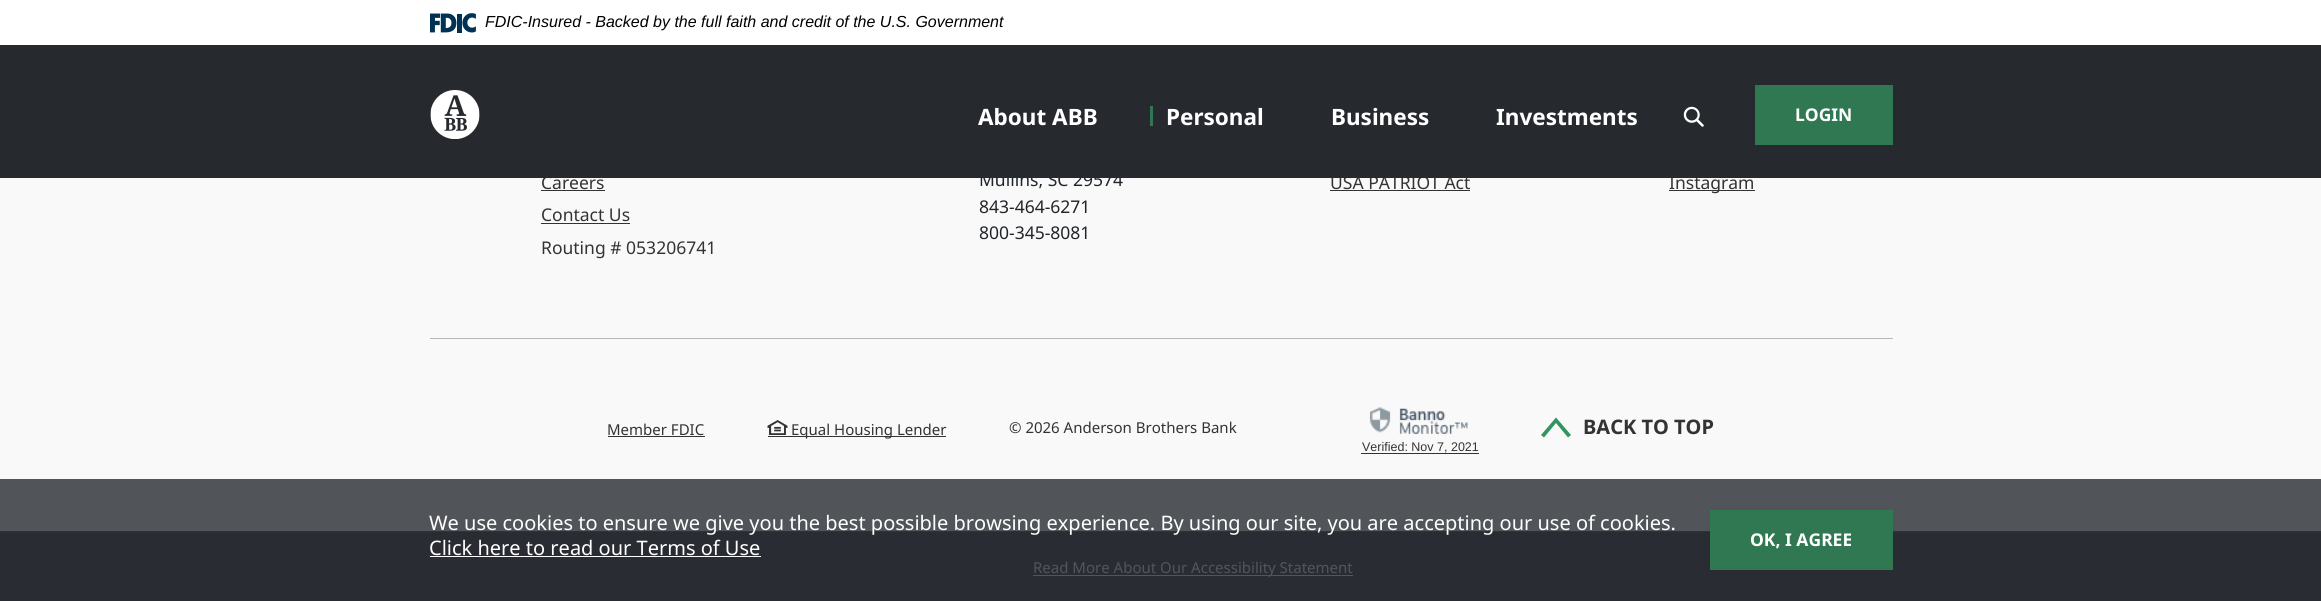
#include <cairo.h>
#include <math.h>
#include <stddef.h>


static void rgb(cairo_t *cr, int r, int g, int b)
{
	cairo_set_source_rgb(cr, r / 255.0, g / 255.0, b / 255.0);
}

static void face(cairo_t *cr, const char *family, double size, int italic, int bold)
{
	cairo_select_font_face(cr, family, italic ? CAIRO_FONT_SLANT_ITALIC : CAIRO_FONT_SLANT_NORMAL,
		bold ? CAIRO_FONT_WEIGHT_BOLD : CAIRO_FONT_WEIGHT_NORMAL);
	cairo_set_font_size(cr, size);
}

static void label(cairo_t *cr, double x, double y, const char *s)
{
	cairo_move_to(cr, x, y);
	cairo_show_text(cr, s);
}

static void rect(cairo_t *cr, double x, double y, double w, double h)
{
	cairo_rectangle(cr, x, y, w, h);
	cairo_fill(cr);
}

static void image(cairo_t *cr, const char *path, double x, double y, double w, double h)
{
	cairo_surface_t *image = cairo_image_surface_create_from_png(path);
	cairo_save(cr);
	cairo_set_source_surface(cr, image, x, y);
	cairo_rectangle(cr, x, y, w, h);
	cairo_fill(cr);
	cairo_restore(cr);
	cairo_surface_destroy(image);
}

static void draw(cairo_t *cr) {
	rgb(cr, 41, 45, 51);
	cairo_paint(cr);
	rgb(cr, 249, 249, 249);
	rect(cr, 0, 178, 2321, 301);
	face(cr, "Noto Sans", 17.5, 0, 0);
	rgb(cr, 51, 51, 51);
	label(cr, 541, 189, "Careers");
	rgb(cr, 33, 37, 41);
	label(cr, 979, 186, "Mullins, SC 29574");
	rgb(cr, 51, 51, 51);
	label(cr, 1330, 189, "USA PATRIOT Act");
	rect(cr, 1669, 190, 86, 1);
	label(cr, 1669, 189, "Instagram");
	rgb(cr, 38, 41, 46);
	rect(cr, 0, 45, 2321, 133);
	rgb(cr, 255, 255, 255);
	rect(cr, 0, 0, 2321, 45);
	image(cr, "image0.png", 430, 13, 46, 20);
	face(cr, "Liberation Sans", 16, 1, 0);
	rgb(cr, 0, 0, 0);
	label(cr, 485, 27, "FDIC-Insured - Backed by the full faith and credit of the U.S. Government");
	image(cr, "image1.png", 430, 90, 50, 49);
	face(cr, "Noto Sans", 22.5, 0, 1);
	rgb(cr, 255, 255, 255);
	label(cr, 978, 125, "About ABB");
	rgb(cr, 47, 120, 81);
	rect(cr, 1150, 106, 3, 20);
	rgb(cr, 255, 255, 255);
	label(cr, 1166, 125, "Personal");
	label(cr, 1331, 125, "Business");
	label(cr, 1496, 125, "Investments");
	image(cr, "image2.png", 1683, 106, 21, 21);
	rgb(cr, 47, 120, 81);
	rect(cr, 1755, 85, 138, 60);
	face(cr, "Noto Sans", 17.5, 0, 1);
	rgb(cr, 255, 255, 255);
	label(cr, 1795, 121, "LOGIN");
	rgb(cr, 81, 84, 89);
	rect(cr, 0, 479, 2321, 52);
	rgb(cr, 51, 51, 51);
	rect(cr, 541, 190, 64, 1);
	face(cr, "Noto Sans", 17.5, 0, 0);
	label(cr, 541, 221, "Contact Us");
	rect(cr, 541, 223, 89, 1);
	label(cr, 541, 254, "Routing # 053206741");
	rgb(cr, 33, 37, 41);
	label(cr, 979, 213, "843-464-6271");
	label(cr, 979, 239, "800-345-8081");
	rgb(cr, 51, 51, 51);
	rect(cr, 1330, 190, 140, 1);
	rgb(cr, 182, 182, 182);
	rect(cr, 430, 338, 1463, 1);
	face(cr, "Noto Sans", 15, 0, 0);
	rgb(cr, 51, 51, 51);
	label(cr, 607, 435, "Member FDIC");
	rect(cr, 608, 436, 97, 1);
	image(cr, "image3.png", 767, 420, 21, 15);
	rect(cr, 768, 436, 178, 1);
	label(cr, 791, 435, "Equal Housing Lender");
	label(cr, 1009, 433, "© 2026 Anderson Brothers Bank");
	rgb(cr, 50, 148, 96);
	cairo_new_path(cr);
	cairo_move_to(cr, 1568, 437.5);
	cairo_line_to(cr, 1556, 423);
	cairo_line_to(cr, 1544, 437.5);
	cairo_line_to(cr, 1541, 435);
	cairo_line_to(cr, 1556, 417.5);
	cairo_line_to(cr, 1571, 435);
	cairo_close_path(cr);
	cairo_fill(cr);
	face(cr, "Noto Sans", 20, 0, 1);
	rgb(cr, 51, 51, 51);
	label(cr, 1583, 434, "BACK TO TOP");
	image(cr, "image4.png", 1369, 407, 99, 28);
	face(cr, "Liberation Sans", 12.5, 0, 0);
	label(cr, 1362, 451, "Verified: Nov 7, 2021");
	rect(cr, 1361, 453, 118, 1);
	rgb(cr, 46, 50, 57);
	rect(cr, 0, 531, 2321, 1);
	face(cr, "Noto Sans", 20, 0, 0);
	rgb(cr, 255, 255, 255);
	label(cr, 429, 530, "We use cookies to ensure we give you the best possible browsing experience. By using our site, you are accepting our use of cookies.");
	label(cr, 429, 555, "Click here to read our Terms of Use");
	rect(cr, 430, 556, 331, 1);
	rgb(cr, 47, 120, 81);
	rect(cr, 1710, 510, 183, 60);
	face(cr, "Noto Sans", 17.5, 0, 1);
	rgb(cr, 255, 255, 255);
	label(cr, 1750, 546, "OK, I AGREE");
	rgb(cr, 82, 85, 90);
	rect(cr, 1033, 575, 320, 1);
	face(cr, "Noto Sans", 15, 0, 0);
	label(cr, 1033, 573, "Read More About Our Accessibility Statement");
}

int main(void) {
	cairo_surface_t *surface = cairo_image_surface_create(CAIRO_FORMAT_RGB24, 2321, 601);
	cairo_t *cr = cairo_create(surface);
	cairo_font_options_t *options = cairo_font_options_create();
	cairo_font_options_set_hint_metrics(options, CAIRO_HINT_METRICS_OFF);
	cairo_font_options_set_hint_style(options, CAIRO_HINT_STYLE_NONE);
	cairo_set_font_options(cr, options);
	cairo_set_miter_limit(cr, 4);
	draw(cr);
	cairo_surface_write_to_png(surface, "render.png");
	cairo_font_options_destroy(options);
	cairo_destroy(cr);
	cairo_surface_destroy(surface);
	return 0;
}
